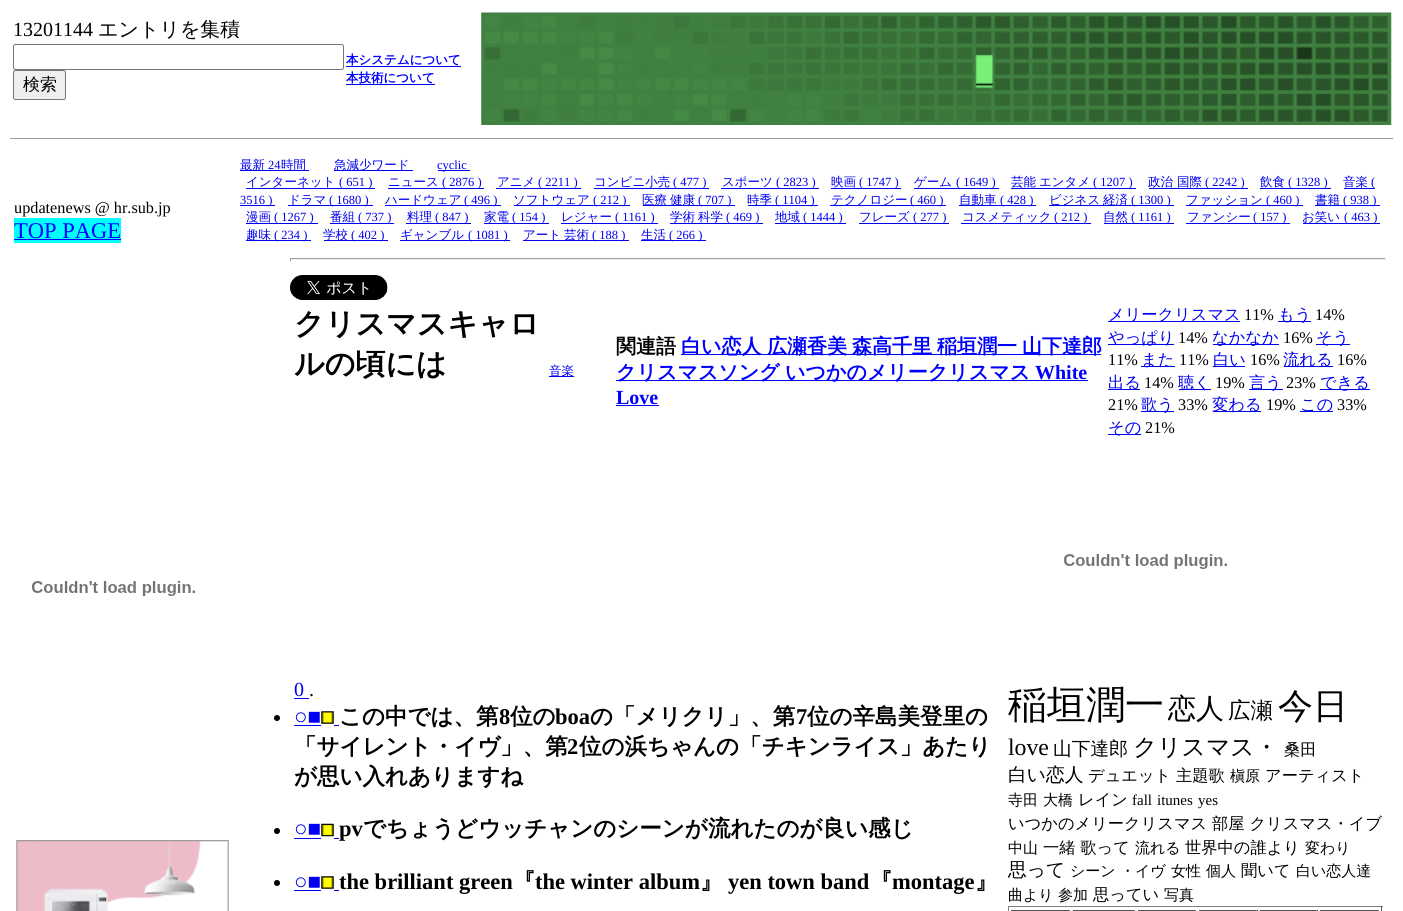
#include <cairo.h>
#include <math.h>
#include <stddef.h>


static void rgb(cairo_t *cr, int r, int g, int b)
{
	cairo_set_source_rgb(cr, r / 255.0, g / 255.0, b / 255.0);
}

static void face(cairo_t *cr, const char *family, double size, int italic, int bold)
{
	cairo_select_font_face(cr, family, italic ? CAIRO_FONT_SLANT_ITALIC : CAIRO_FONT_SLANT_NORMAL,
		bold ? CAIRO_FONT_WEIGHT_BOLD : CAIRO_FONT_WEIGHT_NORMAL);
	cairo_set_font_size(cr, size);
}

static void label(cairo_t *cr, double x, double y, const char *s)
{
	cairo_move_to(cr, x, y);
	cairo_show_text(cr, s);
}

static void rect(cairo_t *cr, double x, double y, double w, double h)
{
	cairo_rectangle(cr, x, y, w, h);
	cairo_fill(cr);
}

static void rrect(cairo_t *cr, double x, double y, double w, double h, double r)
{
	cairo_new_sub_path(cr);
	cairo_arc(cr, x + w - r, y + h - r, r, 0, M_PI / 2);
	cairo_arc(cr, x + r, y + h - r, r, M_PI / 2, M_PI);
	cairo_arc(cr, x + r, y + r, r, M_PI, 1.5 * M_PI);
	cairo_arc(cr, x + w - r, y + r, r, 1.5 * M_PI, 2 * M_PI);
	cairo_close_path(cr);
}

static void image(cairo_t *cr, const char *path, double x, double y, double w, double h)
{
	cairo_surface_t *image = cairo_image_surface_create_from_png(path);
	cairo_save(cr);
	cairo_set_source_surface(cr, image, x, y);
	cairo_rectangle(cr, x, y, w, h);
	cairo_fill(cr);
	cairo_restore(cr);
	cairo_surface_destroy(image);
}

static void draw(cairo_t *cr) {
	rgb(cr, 255, 255, 255);
	cairo_paint(cr);
	face(cr, "Liberation Serif", 20, 0, 0);
	rgb(cr, 0, 0, 0);
	label(cr, 13, 36, "13201144");
	face(cr, "WenQuanYi Zen Hei Medium", 20, 0, 0);
	label(cr, 98, 36, "エントリを集積");
	rrect(cr, 13.5, 44.5, 330, 25, 2);
	rgb(cr, 118, 118, 118);
	cairo_set_line_width(cr, 1);
	cairo_stroke(cr);
	rgb(cr, 239, 239, 239);
	rrect(cr, 13.5, 70.5, 52, 29, 2);
	cairo_fill_preserve(cr);
	rgb(cr, 118, 118, 118);
	cairo_stroke(cr);
	face(cr, "WenQuanYi Zen Hei Medium", 17, 0, 0);
	rgb(cr, 0, 0, 0);
	label(cr, 23, 90, "検索");
	face(cr, "WenQuanYi Zen Hei", 12.5, 0, 1);
	rgb(cr, 0, 0, 255);
	label(cr, 346, 64, "本システムについて");
	rect(cr, 346, 66, 115, 1);
	label(cr, 346, 82, "本技術について");
	rect(cr, 346, 84, 89, 1);
	image(cr, "image0.png", 481, 12, 911, 113);
	rgb(cr, 159, 159, 159);
	rect(cr, 10, 138, 1384, 1);
	rgb(cr, 238, 238, 238);
	rect(cr, 1393, 138, 1, 1);
	face(cr, "Liberation Serif", 16.25, 0, 0);
	rgb(cr, 0, 0, 0);
	label(cr, 14, 213, "updatenews @ hr.sub.jp");
	rgb(cr, 0, 255, 255);
	rect(cr, 14, 218, 107, 25);
	face(cr, "Liberation Serif", 22.5, 0, 0);
	rgb(cr, 0, 0, 255);
	label(cr, 14, 238, "TOP PAGE");
	rect(cr, 14, 239, 107, 1);
	image(cr, "image1.png", 32, 581, 163, 15);
	image(cr, "image2.png", 16, 840, 213, 71);
	rgb(cr, 0, 0, 238);
	rect(cr, 240, 170, 69, 1);
	face(cr, "WenQuanYi Zen Hei Medium", 12.5, 0, 0);
	label(cr, 240, 169, "最新");
	face(cr, "Liberation Serif", 12.5, 0, 0);
	label(cr, 268, 169, "24");
	face(cr, "WenQuanYi Zen Hei Medium", 12.5, 0, 0);
	label(cr, 281, 169, "時間");
	rect(cr, 334, 170, 79, 1);
	label(cr, 334, 169, "急減少ワード");
	rect(cr, 438, 170, 32, 1);
	face(cr, "Liberation Serif", 12.5, 0, 0);
	label(cr, 437, 169, "cyclic");
	face(cr, "WenQuanYi Zen Hei Medium", 12.5, 0, 0);
	label(cr, 246, 186, "インターネット");
	rect(cr, 246, 188, 129, 1);
	face(cr, "Liberation Serif", 12.5, 0, 0);
	label(cr, 339, 186, "( 651 )");
	face(cr, "WenQuanYi Zen Hei Medium", 12.5, 0, 0);
	label(cr, 388, 186, "ニュース");
	rect(cr, 388, 188, 96, 1);
	face(cr, "Liberation Serif", 12.5, 0, 0);
	label(cr, 442, 186, "( 2876 )");
	face(cr, "WenQuanYi Zen Hei Medium", 12.5, 0, 0);
	label(cr, 497, 186, "アニメ");
	rect(cr, 496, 188, 85, 1);
	face(cr, "Liberation Serif", 12.5, 0, 0);
	label(cr, 538, 186, "( 2211 )");
	face(cr, "WenQuanYi Zen Hei Medium", 12.5, 0, 0);
	label(cr, 594, 186, "コンビニ小売");
	rect(cr, 594, 188, 115, 1);
	face(cr, "Liberation Serif", 12.5, 0, 0);
	label(cr, 673, 186, "( 477 )");
	face(cr, "WenQuanYi Zen Hei Medium", 12.5, 0, 0);
	label(cr, 722, 186, "スポーツ");
	rect(cr, 721, 188, 98, 1);
	face(cr, "Liberation Serif", 12.5, 0, 0);
	label(cr, 776, 186, "( 2823 )");
	face(cr, "WenQuanYi Zen Hei Medium", 12.5, 0, 0);
	label(cr, 831, 186, "映画");
	rect(cr, 831, 188, 70, 1);
	face(cr, "Liberation Serif", 12.5, 0, 0);
	label(cr, 859, 186, "( 1747 )");
	face(cr, "WenQuanYi Zen Hei Medium", 12.5, 0, 0);
	label(cr, 914, 186, "ゲーム");
	rect(cr, 914, 188, 85, 1);
	face(cr, "Liberation Serif", 12.5, 0, 0);
	label(cr, 956, 186, "( 1649 )");
	face(cr, "WenQuanYi Zen Hei Medium", 12.5, 0, 0);
	label(cr, 1011, 186, "芸能");
	label(cr, 1039, 186, "エンタメ");
	rect(cr, 1011, 188, 125, 1);
	face(cr, "Liberation Serif", 12.5, 0, 0);
	label(cr, 1093, 186, "( 1207 )");
	face(cr, "WenQuanYi Zen Hei Medium", 12.5, 0, 0);
	label(cr, 1148, 186, "政治");
	label(cr, 1177, 186, "国際");
	rect(cr, 1149, 188, 99, 1);
	face(cr, "Liberation Serif", 12.5, 0, 0);
	label(cr, 1205, 186, "( 2242 )");
	face(cr, "WenQuanYi Zen Hei Medium", 12.5, 0, 0);
	label(cr, 1260, 186, "飲食");
	rect(cr, 1260, 188, 71, 1);
	face(cr, "Liberation Serif", 12.5, 0, 0);
	label(cr, 1288, 186, "( 1328 )");
	face(cr, "WenQuanYi Zen Hei Medium", 12.5, 0, 0);
	label(cr, 1343, 186, "音楽");
	rect(cr, 1344, 188, 31, 1);
	face(cr, "Liberation Serif", 12.5, 0, 0);
	label(cr, 1371, 186, "(");
	rect(cr, 240, 205, 35, 1);
	label(cr, 240, 204, "3516 )");
	rect(cr, 288, 205, 85, 1);
	face(cr, "WenQuanYi Zen Hei Medium", 12.5, 0, 0);
	label(cr, 288, 204, "ドラマ");
	face(cr, "Liberation Serif", 12.5, 0, 0);
	label(cr, 329, 204, "( 1680 )");
	rect(cr, 385, 205, 116, 1);
	face(cr, "WenQuanYi Zen Hei Medium", 12.5, 0, 0);
	label(cr, 385, 204, "ハードウェア");
	face(cr, "Liberation Serif", 12.5, 0, 0);
	label(cr, 464, 204, "( 496 )");
	rect(cr, 514, 205, 116, 1);
	face(cr, "WenQuanYi Zen Hei Medium", 12.5, 0, 0);
	label(cr, 513, 204, "ソフトウェア");
	face(cr, "Liberation Serif", 12.5, 0, 0);
	label(cr, 593, 204, "( 212 )");
	rect(cr, 643, 205, 92, 1);
	face(cr, "WenQuanYi Zen Hei Medium", 12.5, 0, 0);
	label(cr, 642, 204, "医療");
	label(cr, 670, 204, "健康");
	face(cr, "Liberation Serif", 12.5, 0, 0);
	label(cr, 698, 204, "( 707 )");
	rect(cr, 748, 205, 70, 1);
	face(cr, "WenQuanYi Zen Hei Medium", 12.5, 0, 0);
	label(cr, 747, 204, "時季");
	face(cr, "Liberation Serif", 12.5, 0, 0);
	label(cr, 775, 204, "( 1104 )");
	rect(cr, 830, 205, 116, 1);
	face(cr, "WenQuanYi Zen Hei Medium", 12.5, 0, 0);
	label(cr, 831, 204, "テクノロジー");
	face(cr, "Liberation Serif", 12.5, 0, 0);
	label(cr, 910, 204, "( 460 )");
	rect(cr, 959, 205, 77, 1);
	face(cr, "WenQuanYi Zen Hei Medium", 12.5, 0, 0);
	label(cr, 959, 204, "自動車");
	face(cr, "Liberation Serif", 12.5, 0, 0);
	label(cr, 1000, 204, "( 428 )");
	rect(cr, 1049, 205, 125, 1);
	face(cr, "WenQuanYi Zen Hei Medium", 12.5, 0, 0);
	label(cr, 1049, 204, "ビジネス");
	label(cr, 1103, 204, "経済");
	face(cr, "Liberation Serif", 12.5, 0, 0);
	label(cr, 1131, 204, "( 1300 )");
	rect(cr, 1186, 205, 117, 1);
	face(cr, "WenQuanYi Zen Hei Medium", 12.5, 0, 0);
	label(cr, 1186, 204, "ファッション");
	face(cr, "Liberation Serif", 12.5, 0, 0);
	label(cr, 1266, 204, "( 460 )");
	rect(cr, 1315, 205, 65, 1);
	face(cr, "WenQuanYi Zen Hei Medium", 12.5, 0, 0);
	label(cr, 1315, 204, "書籍");
	face(cr, "Liberation Serif", 12.5, 0, 0);
	label(cr, 1343, 204, "( 938 )");
	face(cr, "WenQuanYi Zen Hei Medium", 12.5, 0, 0);
	label(cr, 246, 221, "漫画");
	rect(cr, 246, 223, 72, 1);
	face(cr, "Liberation Serif", 12.5, 0, 0);
	label(cr, 274, 221, "( 1267 )");
	face(cr, "WenQuanYi Zen Hei Medium", 12.5, 0, 0);
	label(cr, 330, 221, "番組");
	rect(cr, 330, 223, 64, 1);
	face(cr, "Liberation Serif", 12.5, 0, 0);
	label(cr, 358, 221, "( 737 )");
	face(cr, "WenQuanYi Zen Hei Medium", 12.5, 0, 0);
	label(cr, 407, 221, "料理");
	rect(cr, 406, 223, 65, 1);
	face(cr, "Liberation Serif", 12.5, 0, 0);
	label(cr, 435, 221, "( 847 )");
	face(cr, "WenQuanYi Zen Hei Medium", 12.5, 0, 0);
	label(cr, 484, 221, "家電");
	rect(cr, 484, 223, 65, 1);
	face(cr, "Liberation Serif", 12.5, 0, 0);
	label(cr, 512, 221, "( 154 )");
	face(cr, "WenQuanYi Zen Hei Medium", 12.5, 0, 0);
	label(cr, 561, 221, "レジャー");
	rect(cr, 561, 223, 97, 1);
	face(cr, "Liberation Serif", 12.5, 0, 0);
	label(cr, 615, 221, "( 1161 )");
	face(cr, "WenQuanYi Zen Hei Medium", 12.5, 0, 0);
	label(cr, 670, 221, "学術");
	label(cr, 698, 221, "科学");
	rect(cr, 670, 223, 93, 1);
	face(cr, "Liberation Serif", 12.5, 0, 0);
	label(cr, 726, 221, "( 469 )");
	face(cr, "WenQuanYi Zen Hei Medium", 12.5, 0, 0);
	label(cr, 775, 221, "地域");
	rect(cr, 775, 223, 71, 1);
	face(cr, "Liberation Serif", 12.5, 0, 0);
	label(cr, 803, 221, "( 1444 )");
	face(cr, "WenQuanYi Zen Hei Medium", 12.5, 0, 0);
	label(cr, 859, 221, "フレーズ");
	rect(cr, 859, 223, 90, 1);
	face(cr, "Liberation Serif", 12.5, 0, 0);
	label(cr, 913, 221, "( 277 )");
	face(cr, "WenQuanYi Zen Hei Medium", 12.5, 0, 0);
	label(cr, 962, 221, "コスメティック");
	rect(cr, 961, 223, 130, 1);
	face(cr, "Liberation Serif", 12.5, 0, 0);
	label(cr, 1054, 221, "( 212 )");
	rect(cr, 1104, 223, 70, 1);
	face(cr, "WenQuanYi Zen Hei Medium", 12.5, 0, 0);
	label(cr, 1103, 221, "自然");
	face(cr, "Liberation Serif", 12.5, 0, 0);
	label(cr, 1131, 221, "( 1161 )");
	face(cr, "WenQuanYi Zen Hei Medium", 12.5, 0, 0);
	label(cr, 1187, 221, "ファンシー");
	rect(cr, 1186, 223, 104, 1);
	face(cr, "Liberation Serif", 12.5, 0, 0);
	label(cr, 1253, 221, "( 157 )");
	face(cr, "WenQuanYi Zen Hei Medium", 12.5, 0, 0);
	label(cr, 1302, 221, "お笑い");
	rect(cr, 1303, 223, 77, 1);
	face(cr, "Liberation Serif", 12.5, 0, 0);
	label(cr, 1344, 221, "( 463 )");
	rect(cr, 246, 240, 65, 1);
	face(cr, "WenQuanYi Zen Hei Medium", 12.5, 0, 0);
	label(cr, 246, 239, "趣味");
	face(cr, "Liberation Serif", 12.5, 0, 0);
	label(cr, 274, 239, "( 234 )");
	rect(cr, 324, 240, 64, 1);
	face(cr, "WenQuanYi Zen Hei Medium", 12.5, 0, 0);
	label(cr, 323, 239, "学校");
	face(cr, "Liberation Serif", 12.5, 0, 0);
	label(cr, 351, 239, "( 402 )");
	rect(cr, 400, 240, 110, 1);
	face(cr, "WenQuanYi Zen Hei Medium", 12.5, 0, 0);
	label(cr, 400, 239, "ギャンブル");
	face(cr, "Liberation Serif", 12.5, 0, 0);
	label(cr, 468, 239, "( 1081 )");
	rect(cr, 523, 240, 106, 1);
	face(cr, "WenQuanYi Zen Hei Medium", 12.5, 0, 0);
	label(cr, 523, 239, "アート");
	label(cr, 564, 239, "芸術");
	face(cr, "Liberation Serif", 12.5, 0, 0);
	label(cr, 592, 239, "( 188 )");
	rect(cr, 641, 240, 65, 1);
	face(cr, "WenQuanYi Zen Hei Medium", 12.5, 0, 0);
	label(cr, 641, 239, "生活");
	face(cr, "Liberation Serif", 12.5, 0, 0);
	label(cr, 669, 239, "( 266 )");
	rgb(cr, 159, 159, 159);
	rect(cr, 290, 258, 1096, 1);
	rgb(cr, 238, 238, 238);
	rect(cr, 1385, 258, 1, 3);
	rect(cr, 290, 259, 1096, 1);
	rgb(cr, 159, 159, 159);
	rect(cr, 290, 258, 1, 3);
	image(cr, "image3.png", 290, 275, 98, 25);
	face(cr, "WenQuanYi Zen Hei", 30, 0, 1);
	rgb(cr, 0, 0, 0);
	label(cr, 294, 334, "クリスマスキャロ");
	label(cr, 294, 374, "ルの頃には");
	rgb(cr, 0, 0, 238);
	rect(cr, 549, 376, 25, 1);
	face(cr, "WenQuanYi Zen Hei Medium", 12.5, 0, 0);
	label(cr, 549, 375, "音楽");
	face(cr, "WenQuanYi Zen Hei", 20, 0, 1);
	rgb(cr, 0, 0, 0);
	label(cr, 616, 353, "関連語");
	rgb(cr, 0, 0, 255);
	rect(cr, 681, 354, 420, 1);
	label(cr, 681, 353, "白い恋人");
	label(cr, 767, 353, "広瀬香美");
	label(cr, 852, 353, "森高千里");
	label(cr, 937, 353, "稲垣潤一");
	label(cr, 1022, 353, "山下達郎");
	rect(cr, 616, 380, 472, 1);
	label(cr, 616, 379, "クリスマスソング");
	label(cr, 785, 379, "いつかのメリークリスマス");
	face(cr, "Liberation Serif", 20, 0, 1);
	label(cr, 1035, 379, "White");
	label(cr, 616, 404, "Love");
	rect(cr, 616, 405, 43, 1);
	rgb(cr, 0, 0, 238);
	rect(cr, 1108, 321, 132, 1);
	face(cr, "WenQuanYi Zen Hei Medium", 16.25, 0, 0);
	label(cr, 1108, 320, "メリークリスマス");
	face(cr, "Liberation Serif", 16.25, 0, 0);
	rgb(cr, 0, 0, 0);
	label(cr, 1244, 320, "11%");
	rgb(cr, 0, 0, 238);
	rect(cr, 1278, 321, 33, 1);
	face(cr, "WenQuanYi Zen Hei Medium", 16.25, 0, 0);
	label(cr, 1278, 320, "もう");
	face(cr, "Liberation Serif", 16.25, 0, 0);
	rgb(cr, 0, 0, 0);
	label(cr, 1315, 320, "14%");
	rgb(cr, 0, 0, 238);
	rect(cr, 1108, 344, 66, 1);
	face(cr, "WenQuanYi Zen Hei Medium", 16.25, 0, 0);
	label(cr, 1108, 343, "やっぱり");
	face(cr, "Liberation Serif", 16.25, 0, 0);
	rgb(cr, 0, 0, 0);
	label(cr, 1178, 343, "14%");
	rgb(cr, 0, 0, 238);
	rect(cr, 1213, 344, 66, 1);
	face(cr, "WenQuanYi Zen Hei Medium", 16.25, 0, 0);
	label(cr, 1212, 343, "なかなか");
	face(cr, "Liberation Serif", 16.25, 0, 0);
	rgb(cr, 0, 0, 0);
	label(cr, 1283, 343, "16%");
	rgb(cr, 0, 0, 238);
	rect(cr, 1316, 344, 34, 1);
	face(cr, "WenQuanYi Zen Hei Medium", 16.25, 0, 0);
	label(cr, 1316, 343, "そう");
	face(cr, "Liberation Serif", 16.25, 0, 0);
	rgb(cr, 0, 0, 0);
	label(cr, 1108, 365, "11%");
	rgb(cr, 0, 0, 238);
	rect(cr, 1141, 366, 34, 1);
	face(cr, "WenQuanYi Zen Hei Medium", 16.25, 0, 0);
	label(cr, 1141, 365, "また");
	face(cr, "Liberation Serif", 16.25, 0, 0);
	rgb(cr, 0, 0, 0);
	label(cr, 1179, 365, "11%");
	rgb(cr, 0, 0, 238);
	rect(cr, 1213, 366, 32, 1);
	face(cr, "WenQuanYi Zen Hei Medium", 16.25, 0, 0);
	label(cr, 1213, 365, "白い");
	face(cr, "Liberation Serif", 16.25, 0, 0);
	rgb(cr, 0, 0, 0);
	label(cr, 1250, 365, "16%");
	rgb(cr, 0, 0, 238);
	rect(cr, 1284, 366, 49, 1);
	face(cr, "WenQuanYi Zen Hei Medium", 16.25, 0, 0);
	label(cr, 1283, 365, "流れる");
	face(cr, "Liberation Serif", 16.25, 0, 0);
	rgb(cr, 0, 0, 0);
	label(cr, 1337, 365, "16%");
	rgb(cr, 0, 0, 238);
	rect(cr, 1108, 389, 32, 1);
	face(cr, "WenQuanYi Zen Hei Medium", 16.25, 0, 0);
	label(cr, 1108, 388, "出る");
	face(cr, "Liberation Serif", 16.25, 0, 0);
	rgb(cr, 0, 0, 0);
	label(cr, 1144, 388, "14%");
	rgb(cr, 0, 0, 238);
	rect(cr, 1179, 389, 32, 1);
	face(cr, "WenQuanYi Zen Hei Medium", 16.25, 0, 0);
	label(cr, 1178, 388, "聴く");
	face(cr, "Liberation Serif", 16.25, 0, 0);
	rgb(cr, 0, 0, 0);
	label(cr, 1215, 388, "19%");
	rgb(cr, 0, 0, 238);
	rect(cr, 1249, 389, 34, 1);
	face(cr, "WenQuanYi Zen Hei Medium", 16.25, 0, 0);
	label(cr, 1249, 388, "言う");
	face(cr, "Liberation Serif", 16.25, 0, 0);
	rgb(cr, 0, 0, 0);
	label(cr, 1286, 388, "23%");
	rgb(cr, 0, 0, 238);
	rect(cr, 1320, 389, 50, 1);
	face(cr, "WenQuanYi Zen Hei Medium", 16.25, 0, 0);
	label(cr, 1320, 388, "できる");
	face(cr, "Liberation Serif", 16.25, 0, 0);
	rgb(cr, 0, 0, 0);
	label(cr, 1108, 410, "21%");
	rgb(cr, 0, 0, 238);
	rect(cr, 1141, 411, 33, 1);
	face(cr, "WenQuanYi Zen Hei Medium", 16.25, 0, 0);
	label(cr, 1141, 410, "歌う");
	face(cr, "Liberation Serif", 16.25, 0, 0);
	rgb(cr, 0, 0, 0);
	label(cr, 1178, 410, "33%");
	rgb(cr, 0, 0, 238);
	rect(cr, 1213, 411, 48, 1);
	face(cr, "WenQuanYi Zen Hei Medium", 16.25, 0, 0);
	label(cr, 1212, 410, "変わる");
	face(cr, "Liberation Serif", 16.25, 0, 0);
	rgb(cr, 0, 0, 0);
	label(cr, 1266, 410, "19%");
	rgb(cr, 0, 0, 238);
	rect(cr, 1300, 411, 33, 1);
	face(cr, "WenQuanYi Zen Hei Medium", 16.25, 0, 0);
	label(cr, 1300, 410, "この");
	face(cr, "Liberation Serif", 16.25, 0, 0);
	rgb(cr, 0, 0, 0);
	label(cr, 1337, 410, "33%");
	rgb(cr, 0, 0, 238);
	rect(cr, 1108, 434, 33, 1);
	face(cr, "WenQuanYi Zen Hei Medium", 16.25, 0, 0);
	label(cr, 1108, 433, "その");
	face(cr, "Liberation Serif", 16.25, 0, 0);
	rgb(cr, 0, 0, 0);
	label(cr, 1145, 433, "21%");
	image(cr, "image4.png", 1064, 554, 163, 15);
	face(cr, "Liberation Serif", 20, 0, 0);
	rgb(cr, 0, 0, 238);
	label(cr, 294, 696, "0");
	rect(cr, 294, 698, 15, 1);
	rgb(cr, 0, 0, 0);
	label(cr, 309, 696, ".");
	cairo_new_path(cr);
	cairo_arc(cr, 277, 718, 3, 0, 2 * M_PI);
	cairo_fill(cr);
	face(cr, "Liberation Serif", 22.5, 0, 1);
	rgb(cr, 0, 0, 238);
	label(cr, 294, 724, "○■");
	rect(cr, 294, 725, 27, 1);
	image(cr, "image5.png", 321, 711, 13, 13);
	face(cr, "WenQuanYi Zen Hei", 22.5, 0, 1);
	rgb(cr, 0, 0, 0);
	label(cr, 339, 724, "この中では、第");
	rgb(cr, 0, 0, 238);
	rect(cr, 334, 725, 5, 1);
	face(cr, "Liberation Serif", 22.5, 0, 1);
	rgb(cr, 0, 0, 0);
	label(cr, 499, 724, "8");
	face(cr, "WenQuanYi Zen Hei", 22.5, 0, 1);
	label(cr, 510, 724, "位の");
	face(cr, "Liberation Serif", 22.5, 0, 1);
	label(cr, 555, 724, "boa");
	face(cr, "WenQuanYi Zen Hei", 22.5, 0, 1);
	label(cr, 590, 724, "の「メリクリ」、第");
	face(cr, "Liberation Serif", 22.5, 0, 1);
	label(cr, 796, 724, "7");
	face(cr, "WenQuanYi Zen Hei", 22.5, 0, 1);
	label(cr, 807, 724, "位の辛島美登里の");
	label(cr, 294, 754, "「サイレント・イヴ」、第");
	face(cr, "Liberation Serif", 22.5, 0, 1);
	label(cr, 567, 754, "2");
	face(cr, "WenQuanYi Zen Hei", 22.5, 0, 1);
	label(cr, 579, 754, "位の浜ちゃんの「チキンライス」あたり");
	label(cr, 294, 784, "が思い入れありますね");
	cairo_new_path(cr);
	cairo_arc(cr, 277, 831, 3, 0, 2 * M_PI);
	cairo_fill(cr);
	face(cr, "Liberation Serif", 22.5, 0, 1);
	rgb(cr, 0, 0, 238);
	label(cr, 294, 836, "○■");
	rect(cr, 294, 838, 27, 1);
	image(cr, "image6.png", 321, 823, 13, 14);
	rgb(cr, 0, 0, 0);
	label(cr, 339, 836, "pv");
	rgb(cr, 0, 0, 238);
	rect(cr, 334, 838, 5, 1);
	face(cr, "WenQuanYi Zen Hei", 22.5, 0, 1);
	rgb(cr, 0, 0, 0);
	label(cr, 363, 836, "でちょうどウッチャンのシーンが流れたのが良い感じ");
	cairo_new_path(cr);
	cairo_arc(cr, 277, 883, 3, 0, 2 * M_PI);
	cairo_fill(cr);
	face(cr, "Liberation Serif", 22.5, 0, 1);
	rgb(cr, 0, 0, 238);
	label(cr, 294, 889, "○■");
	rect(cr, 294, 890, 27, 1);
	image(cr, "image5.png", 321, 876, 13, 13);
	rgb(cr, 0, 0, 0);
	label(cr, 339, 889, "the brilliant green");
	rgb(cr, 0, 0, 238);
	rect(cr, 334, 890, 5, 1);
	face(cr, "WenQuanYi Zen Hei", 22.5, 0, 1);
	rgb(cr, 0, 0, 0);
	label(cr, 513, 889, "『");
	face(cr, "Liberation Serif", 22.5, 0, 1);
	label(cr, 535, 889, "the winter album");
	face(cr, "WenQuanYi Zen Hei", 22.5, 0, 1);
	label(cr, 700, 889, "』");
	face(cr, "Liberation Serif", 22.5, 0, 1);
	label(cr, 728, 889, "yen town band");
	face(cr, "WenQuanYi Zen Hei", 22.5, 0, 1);
	label(cr, 870, 889, "『");
	face(cr, "Liberation Serif", 22.5, 0, 1);
	label(cr, 892, 889, "montage");
	face(cr, "WenQuanYi Zen Hei", 22.5, 0, 1);
	label(cr, 975, 889, "』");
	face(cr, "WenQuanYi Zen Hei Medium", 39, 0, 0);
	label(cr, 1008, 718, "稲垣潤一");
	face(cr, "WenQuanYi Zen Hei Medium", 28, 0, 0);
	label(cr, 1168, 718, "恋人");
	face(cr, "WenQuanYi Zen Hei Medium", 22.5, 0, 0);
	label(cr, 1228, 718, "広瀬");
	face(cr, "WenQuanYi Zen Hei Medium", 35, 0, 0);
	label(cr, 1278, 718, "今日");
	face(cr, "Liberation Serif", 23.75, 0, 0);
	label(cr, 1008, 755, "love");
	face(cr, "WenQuanYi Zen Hei Medium", 18.75, 0, 0);
	label(cr, 1053, 755, "山下達郎");
	face(cr, "WenQuanYi Zen Hei Medium", 23.75, 0, 0);
	label(cr, 1133, 755, "クリスマス・");
	face(cr, "WenQuanYi Zen Hei Medium", 16.25, 0, 0);
	label(cr, 1284, 755, "桑田");
	face(cr, "WenQuanYi Zen Hei Medium", 18.75, 0, 0);
	label(cr, 1008, 781, "白い恋人");
	face(cr, "WenQuanYi Zen Hei Medium", 16.25, 0, 0);
	label(cr, 1088, 781, "デュエット 主題歌");
	face(cr, "WenQuanYi Zen Hei Medium", 15, 0, 0);
	label(cr, 1230, 781, "槇原");
	face(cr, "WenQuanYi Zen Hei Medium", 16.25, 0, 0);
	label(cr, 1265, 781, "アーティスト");
	face(cr, "WenQuanYi Zen Hei Medium", 15, 0, 0);
	label(cr, 1008, 805, "寺田");
	label(cr, 1043, 805, "大橋");
	face(cr, "WenQuanYi Zen Hei Medium", 16.25, 0, 0);
	label(cr, 1078, 805, "レイン");
	face(cr, "Liberation Serif", 15, 0, 0);
	label(cr, 1132, 805, "fall");
	label(cr, 1157, 805, "itunes");
	label(cr, 1198, 805, "yes");
	face(cr, "WenQuanYi Zen Hei Medium", 16.25, 0, 0);
	label(cr, 1008, 829, "いつかのメリークリスマス 部屋 クリスマス・イブ");
	face(cr, "WenQuanYi Zen Hei Medium", 15, 0, 0);
	label(cr, 1008, 853, "中山");
	face(cr, "WenQuanYi Zen Hei Medium", 16.25, 0, 0);
	label(cr, 1043, 853, "一緒 歌って");
	face(cr, "WenQuanYi Zen Hei Medium", 15, 0, 0);
	label(cr, 1135, 853, "流れる");
	face(cr, "WenQuanYi Zen Hei Medium", 16.25, 0, 0);
	label(cr, 1185, 853, "世界中の誰より");
	face(cr, "WenQuanYi Zen Hei Medium", 15, 0, 0);
	label(cr, 1305, 853, "変わり");
	face(cr, "WenQuanYi Zen Hei Medium", 18.75, 0, 0);
	label(cr, 1008, 876, "思って");
	face(cr, "WenQuanYi Zen Hei Medium", 15, 0, 0);
	label(cr, 1070, 876, "シーン");
	label(cr, 1120, 876, "・イヴ");
	label(cr, 1171, 876, "女性");
	label(cr, 1206, 876, "個人");
	face(cr, "WenQuanYi Zen Hei Medium", 16.25, 0, 0);
	label(cr, 1241, 876, "聞いて");
	face(cr, "WenQuanYi Zen Hei Medium", 15, 0, 0);
	label(cr, 1296, 876, "白い恋人達");
	label(cr, 1008, 900, "曲より");
	label(cr, 1058, 900, "参加");
	face(cr, "WenQuanYi Zen Hei Medium", 16.25, 0, 0);
	label(cr, 1093, 900, "思ってい");
	face(cr, "WenQuanYi Zen Hei Medium", 15, 0, 0);
	label(cr, 1164, 900, "写真");
	rgb(cr, 128, 128, 128);
	rect(cr, 1008, 906, 375, 1);
	rgb(cr, 85, 85, 85);
	rect(cr, 1381, 906, 1, 5);
	rgb(cr, 128, 128, 128);
	rect(cr, 1008, 906, 1, 5);
	rgb(cr, 85, 85, 85);
	rect(cr, 1011, 910, 59, 1);
	rgb(cr, 128, 128, 128);
	rect(cr, 1069, 910, 1, 1);
	rgb(cr, 85, 85, 85);
	rect(cr, 1073, 910, 62, 1);
	rgb(cr, 128, 128, 128);
	rect(cr, 1134, 910, 1, 1);
	rgb(cr, 85, 85, 85);
	rect(cr, 1138, 910, 58, 1);
	rgb(cr, 128, 128, 128);
	rect(cr, 1195, 910, 1, 1);
	rgb(cr, 85, 85, 85);
	rect(cr, 1199, 910, 59, 1);
	rgb(cr, 128, 128, 128);
	rect(cr, 1256, 910, 1, 1);
	rgb(cr, 85, 85, 85);
	rect(cr, 1260, 910, 58, 1);
	rgb(cr, 128, 128, 128);
	rect(cr, 1316, 910, 1, 1);
	rgb(cr, 85, 85, 85);
	rect(cr, 1320, 910, 59, 1);
	rgb(cr, 128, 128, 128);
	rect(cr, 1378, 910, 1, 1);
}

int main(void) {
	cairo_surface_t *surface = cairo_image_surface_create(CAIRO_FORMAT_RGB24, 1403, 911);
	cairo_t *cr = cairo_create(surface);
	cairo_font_options_t *options = cairo_font_options_create();
	cairo_font_options_set_hint_metrics(options, CAIRO_HINT_METRICS_OFF);
	cairo_font_options_set_hint_style(options, CAIRO_HINT_STYLE_NONE);
	cairo_set_font_options(cr, options);
	cairo_set_miter_limit(cr, 4);
	draw(cr);
	cairo_surface_write_to_png(surface, "render.png");
	cairo_font_options_destroy(options);
	cairo_destroy(cr);
	cairo_surface_destroy(surface);
	return 0;
}
